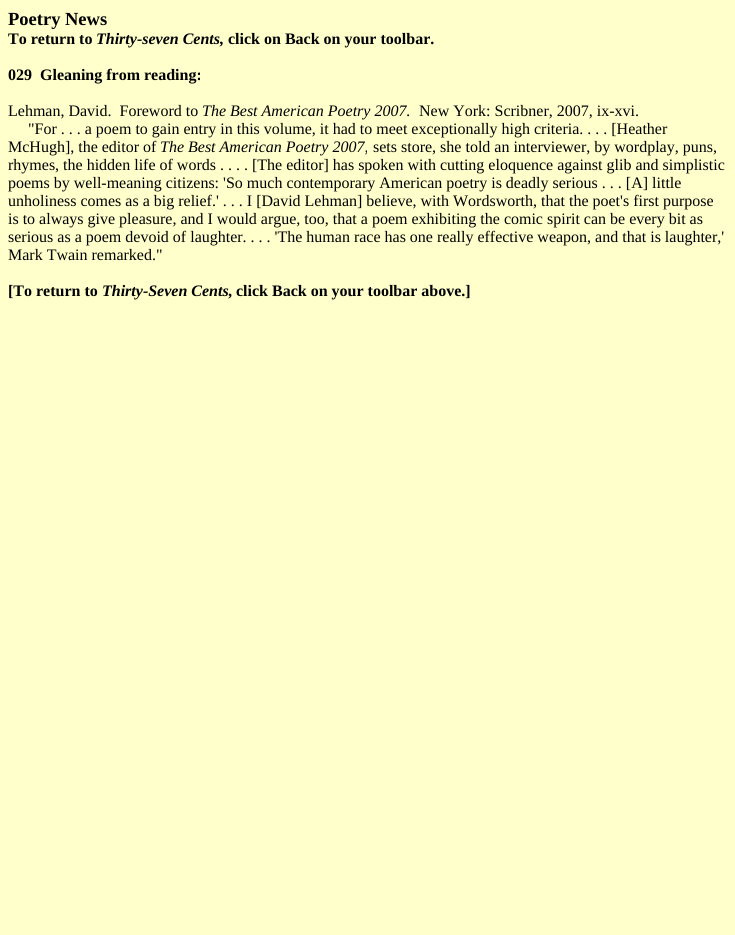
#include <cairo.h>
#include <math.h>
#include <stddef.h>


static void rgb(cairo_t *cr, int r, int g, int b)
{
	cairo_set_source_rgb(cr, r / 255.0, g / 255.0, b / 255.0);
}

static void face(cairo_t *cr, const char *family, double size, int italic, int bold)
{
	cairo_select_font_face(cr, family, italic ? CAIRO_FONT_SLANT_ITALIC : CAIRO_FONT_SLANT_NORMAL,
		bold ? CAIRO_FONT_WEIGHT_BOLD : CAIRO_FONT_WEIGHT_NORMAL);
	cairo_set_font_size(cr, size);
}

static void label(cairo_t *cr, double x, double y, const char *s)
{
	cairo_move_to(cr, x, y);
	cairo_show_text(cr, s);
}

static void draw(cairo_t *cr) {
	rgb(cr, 255, 255, 204);
	cairo_paint(cr);
	face(cr, "Liberation Serif", 18.5, 0, 1);
	rgb(cr, 0, 0, 0);
	label(cr, 8, 25, "Poetry News");
	face(cr, "Liberation Serif", 16, 0, 1);
	label(cr, 8, 44, "To return to");
	face(cr, "Liberation Serif", 16, 1, 1);
	label(cr, 96, 44, "Thirty-seven Cents,");
	face(cr, "Liberation Serif", 16, 0, 1);
	label(cr, 228, 44, "click on Back on your toolbar.");
	label(cr, 8, 80, "029  Gleaning from reading:");
	face(cr, "Liberation Serif", 16, 0, 0);
	label(cr, 8, 116, "Lehman, David.  Foreword to");
	face(cr, "Liberation Serif", 16, 1, 0);
	label(cr, 202, 116, "The Best American Poetry 2007.");
	face(cr, "Liberation Serif", 16, 0, 0);
	label(cr, 419, 116, "New York: Scribner, 2007, ix-xvi.");
	label(cr, 28, 134, "\"For . . . a poem to gain entry in this volume, it had to meet exceptionally high criteria. . . . [Heather");
	label(cr, 8, 152, "McHugh], the editor of");
	face(cr, "Liberation Serif", 16, 1, 0);
	label(cr, 160, 152, "The Best American Poetry 2007,");
	face(cr, "Liberation Serif", 16, 0, 0);
	label(cr, 373, 152, "sets store, she told an interviewer, by wordplay, puns,");
	label(cr, 8, 170, "rhymes, the hidden life of words . . . . [The editor] has spoken with cutting eloquence against glib and simplistic");
	label(cr, 8, 188, "poems by well-meaning citizens: 'So much contemporary American poetry is deadly serious . . . [A] little");
	label(cr, 8, 206, "unholiness comes as a big relief.' . . . I [David Lehman] believe, with Wordsworth, that the poet's first purpose");
	label(cr, 8, 224, "is to always give pleasure, and I would argue, too, that a poem exhibiting the comic spirit can be every bit as");
	label(cr, 8, 242, "serious as a poem devoid of laughter. . . . 'The human race has one really effective weapon, and that is laughter,'");
	label(cr, 8, 260, "Mark Twain remarked.\"");
	face(cr, "Liberation Serif", 16, 0, 1);
	label(cr, 8, 296, "[To return to");
	face(cr, "Liberation Serif", 16, 1, 1);
	label(cr, 102, 296, "Thirty-Seven Cents,");
	face(cr, "Liberation Serif", 16, 0, 1);
	label(cr, 236, 296, "click Back on your toolbar above.]");
}

int main(void) {
	cairo_surface_t *surface = cairo_image_surface_create(CAIRO_FORMAT_RGB24, 735, 935);
	cairo_t *cr = cairo_create(surface);
	cairo_font_options_t *options = cairo_font_options_create();
	cairo_font_options_set_hint_metrics(options, CAIRO_HINT_METRICS_OFF);
	cairo_font_options_set_hint_style(options, CAIRO_HINT_STYLE_NONE);
	cairo_set_font_options(cr, options);
	cairo_set_miter_limit(cr, 4);
	draw(cr);
	cairo_surface_write_to_png(surface, "render.png");
	cairo_font_options_destroy(options);
	cairo_destroy(cr);
	cairo_surface_destroy(surface);
	return 0;
}
